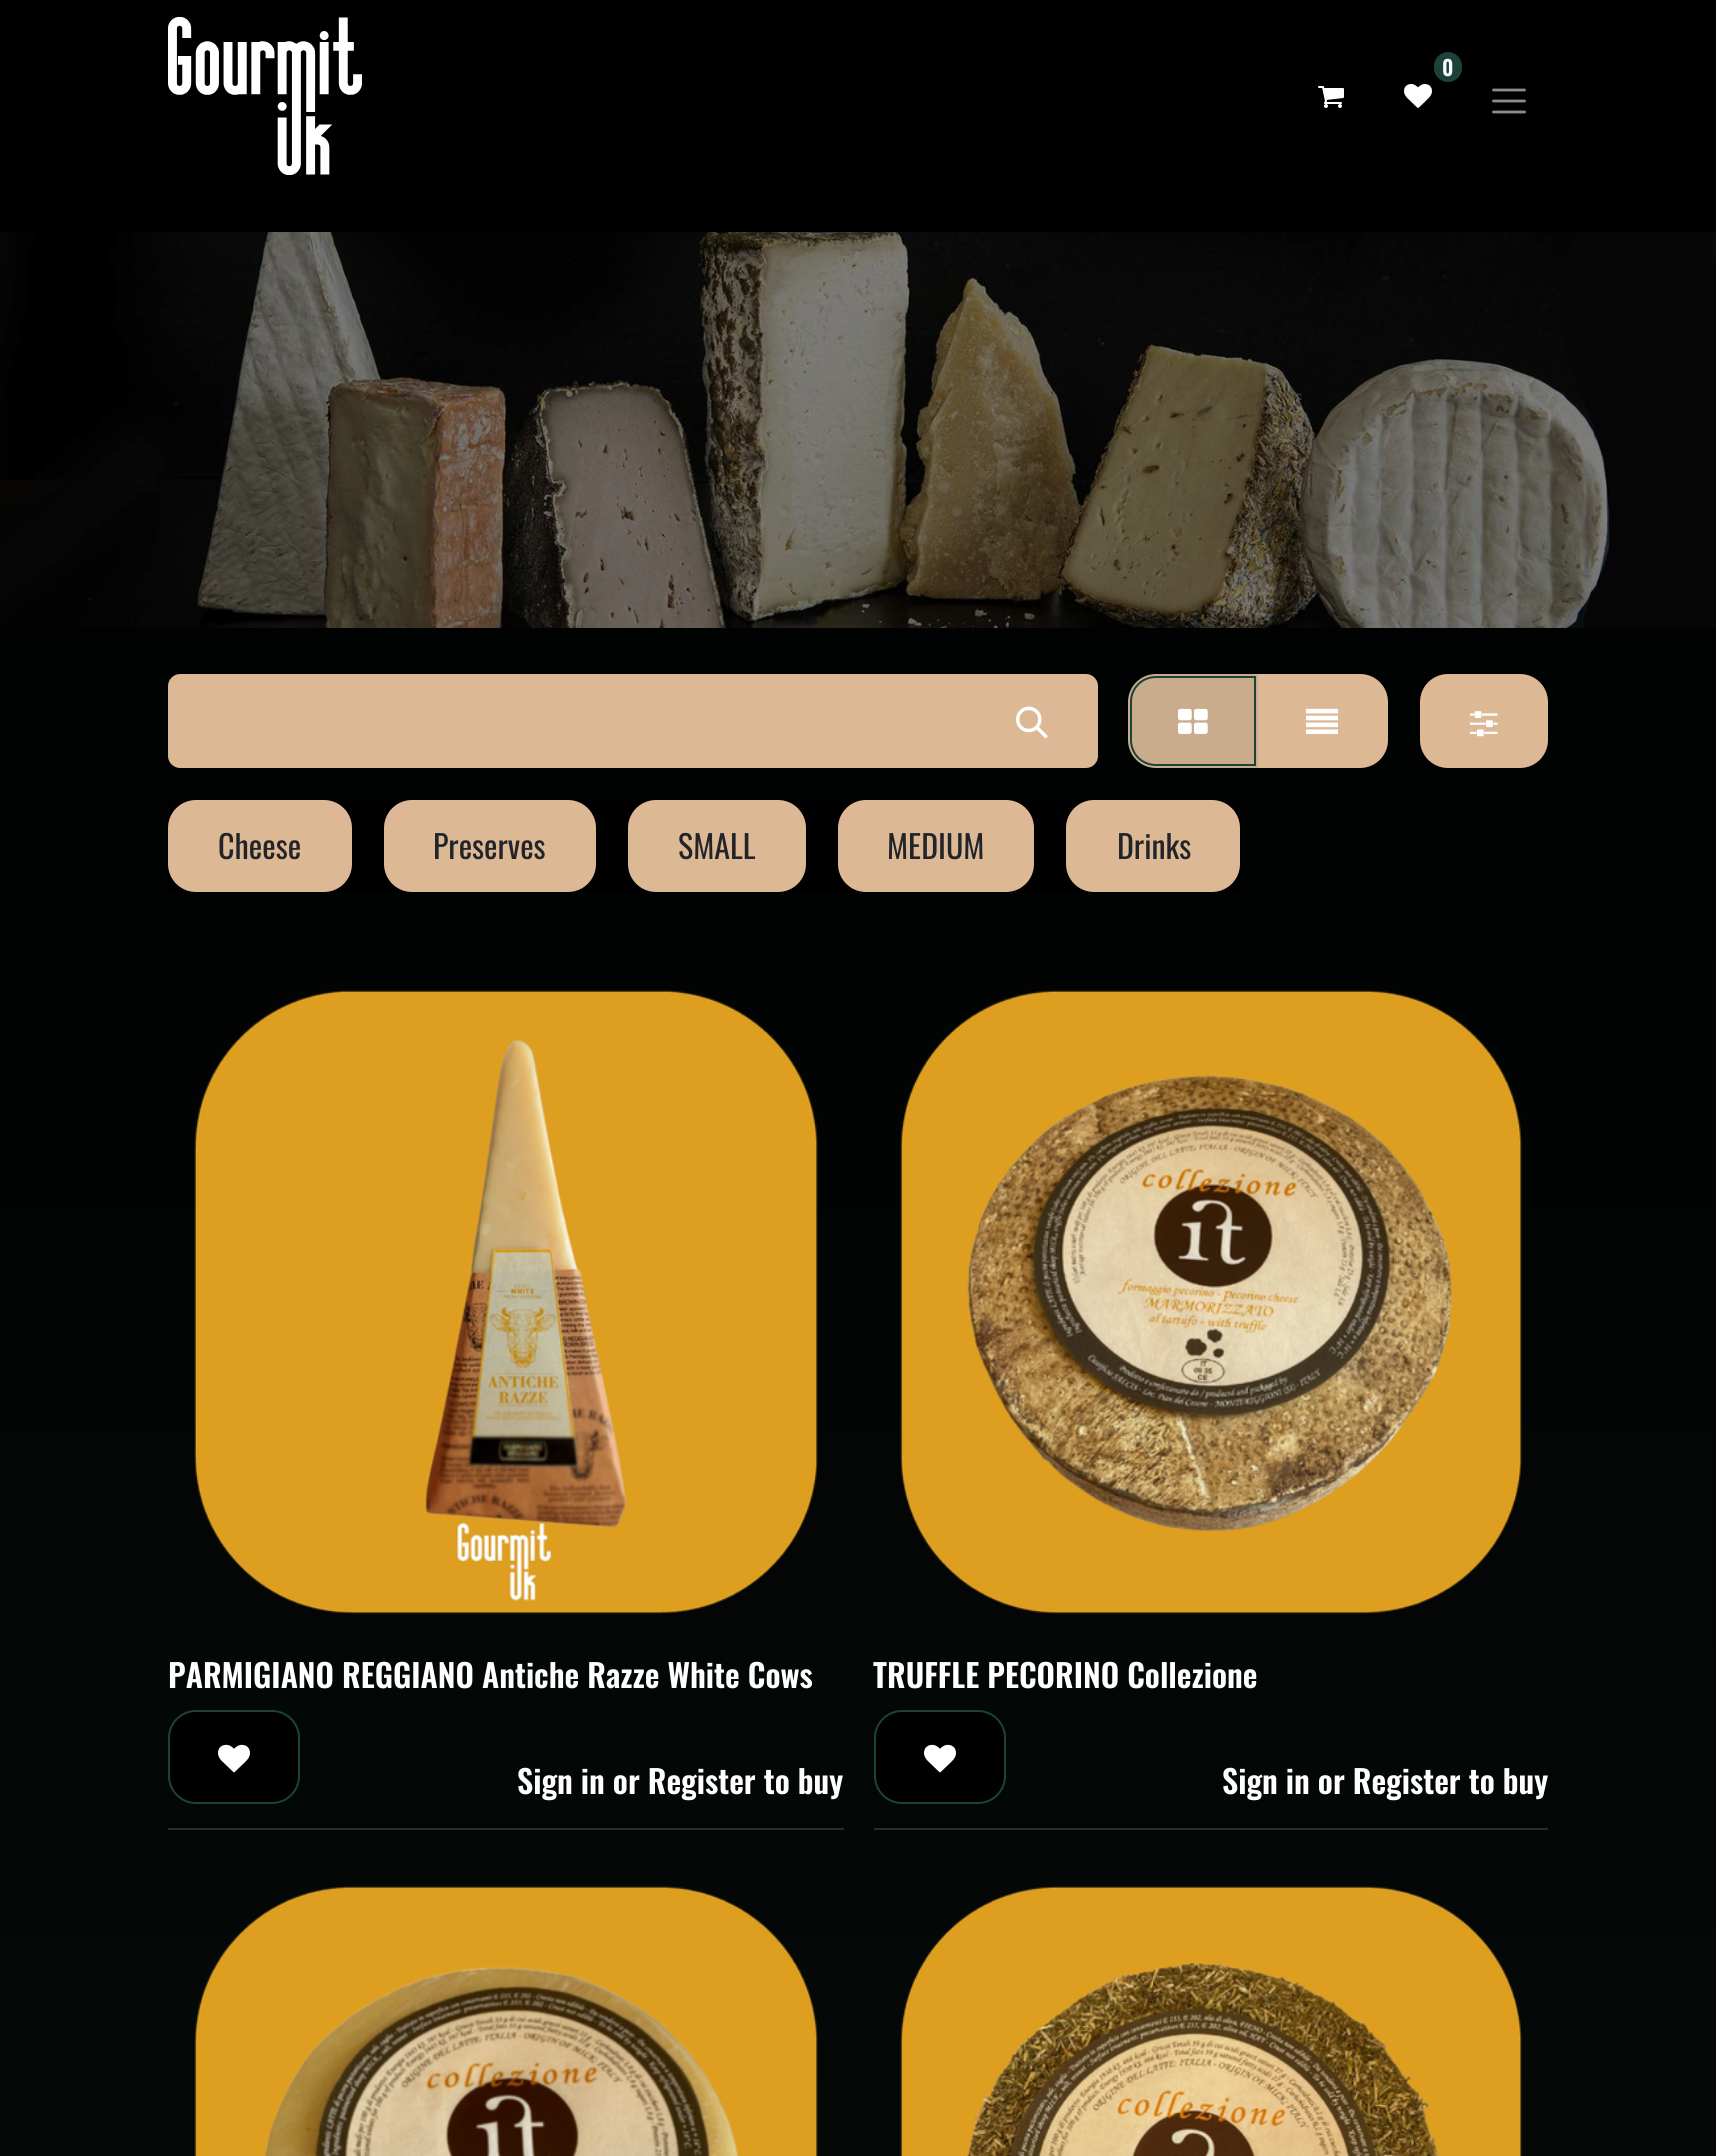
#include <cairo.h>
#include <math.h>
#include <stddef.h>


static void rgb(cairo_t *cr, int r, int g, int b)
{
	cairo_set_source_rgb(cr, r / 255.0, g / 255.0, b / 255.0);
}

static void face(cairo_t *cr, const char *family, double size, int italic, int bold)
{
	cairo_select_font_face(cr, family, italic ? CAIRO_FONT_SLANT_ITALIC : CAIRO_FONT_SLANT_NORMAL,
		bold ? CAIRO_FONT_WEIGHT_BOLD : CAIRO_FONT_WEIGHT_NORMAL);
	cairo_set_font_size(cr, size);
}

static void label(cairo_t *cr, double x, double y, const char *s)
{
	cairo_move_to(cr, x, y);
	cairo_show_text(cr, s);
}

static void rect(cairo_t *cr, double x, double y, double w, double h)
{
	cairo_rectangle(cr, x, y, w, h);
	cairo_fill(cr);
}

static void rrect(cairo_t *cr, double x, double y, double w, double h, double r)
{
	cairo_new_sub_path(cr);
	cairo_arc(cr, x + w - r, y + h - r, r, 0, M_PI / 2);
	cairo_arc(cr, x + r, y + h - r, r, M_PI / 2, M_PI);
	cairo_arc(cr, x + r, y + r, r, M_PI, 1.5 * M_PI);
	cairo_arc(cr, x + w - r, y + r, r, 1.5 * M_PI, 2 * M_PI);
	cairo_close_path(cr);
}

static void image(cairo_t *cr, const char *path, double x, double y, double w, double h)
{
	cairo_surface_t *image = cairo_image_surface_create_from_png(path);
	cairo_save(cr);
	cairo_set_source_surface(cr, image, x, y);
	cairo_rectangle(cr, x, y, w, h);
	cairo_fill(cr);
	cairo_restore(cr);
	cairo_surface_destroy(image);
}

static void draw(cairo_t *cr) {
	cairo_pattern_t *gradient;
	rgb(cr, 255, 255, 255);
	cairo_paint(cr);
	rgb(cr, 0, 0, 0);
	rect(cr, 0, 0, 1716, 232);
	image(cr, "image0.png", 168, 16, 194, 159);
	rgb(cr, 28, 66, 57);
	rrect(cr, 1434, 52, 28, 30, 14);
	cairo_fill(cr);
	face(cr, "Oswald SemiBold", 21, 0, 0);
	rgb(cr, 255, 255, 255);
	label(cr, 1442, 76, "0");
	image(cr, "image1.png", 1404, 84, 28, 24);
	image(cr, "image2.png", 1318, 86, 26, 22);
	cairo_new_path(cr);
	cairo_move_to(cr, 1493.5, 90);
	cairo_line_to(cr, 1524.5, 90);
	cairo_move_to(cr, 1493.5, 101);
	cairo_line_to(cr, 1524.5, 101);
	cairo_move_to(cr, 1493.5, 112);
	cairo_line_to(cr, 1524.5, 112);
	rgb(cr, 140, 140, 140);
	cairo_set_line_width(cr, 2.8);
	cairo_set_line_cap(cr, CAIRO_LINE_CAP_ROUND);
	cairo_stroke(cr);
	gradient = cairo_pattern_create_linear(858, 232, 858, 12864);
	cairo_pattern_add_color_stop_rgba(gradient, 0, 0, 0, 0, 1);
	cairo_pattern_add_color_stop_rgba(gradient, 0.5, 0.051, 0.114, 0.094, 1);
	cairo_pattern_add_color_stop_rgba(gradient, 1, 0, 0, 0, 1);
	cairo_set_source(cr, gradient);
	cairo_pattern_destroy(gradient);
	rect(cr, 0, 628, 1716, 1528);
	image(cr, "image3.png", 0, 232, 1716, 396);
	rgb(cr, 220, 184, 148);
	cairo_new_path(cr);
	cairo_move_to(cr, 180, 674);
	cairo_line_to(cr, 968, 674);
	cairo_line_to(cr, 968, 768);
	cairo_line_to(cr, 180, 768);
	cairo_curve_to(cr, 173.5, 768, 168, 762.5, 168, 756);
	cairo_line_to(cr, 168, 686);
	cairo_curve_to(cr, 168, 679.5, 173.5, 674, 180, 674);
	cairo_close_path(cr);
	cairo_fill(cr);
	cairo_new_path(cr);
	cairo_move_to(cr, 967, 675);
	cairo_line_to(cr, 1086, 675);
	cairo_curve_to(cr, 1092, 675, 1097, 680, 1097, 686);
	cairo_line_to(cr, 1097, 756);
	cairo_curve_to(cr, 1097, 762, 1092, 767, 1086, 767);
	cairo_line_to(cr, 967, 767);
	cairo_close_path(cr);
	cairo_fill_preserve(cr);
	cairo_set_line_width(cr, 2);
	cairo_set_line_cap(cr, CAIRO_LINE_CAP_BUTT);
	cairo_stroke(cr);
	image(cr, "image4.png", 1016, 706, 32, 33);
	cairo_new_path(cr);
	cairo_move_to(cr, 1257, 675);
	cairo_line_to(cr, 1360, 675);
	cairo_curve_to(cr, 1375, 675, 1387, 687, 1387, 702);
	cairo_line_to(cr, 1387, 740);
	cairo_curve_to(cr, 1387, 755, 1375, 767, 1360, 767);
	cairo_line_to(cr, 1257, 767);
	cairo_close_path(cr);
	cairo_fill_preserve(cr);
	cairo_stroke(cr);
	rgb(cr, 201, 172, 139);
	cairo_new_path(cr);
	cairo_move_to(cr, 1156, 674);
	cairo_line_to(cr, 1258, 674);
	cairo_line_to(cr, 1258, 768);
	cairo_line_to(cr, 1156, 768);
	cairo_curve_to(cr, 1140.5, 768, 1128, 755.5, 1128, 740);
	cairo_line_to(cr, 1128, 702);
	cairo_curve_to(cr, 1128, 686.5, 1140.5, 674, 1156, 674);
	cairo_close_path(cr);
	cairo_fill(cr);
	cairo_new_path(cr);
	cairo_move_to(cr, 1156, 677);
	cairo_line_to(cr, 1255, 677);
	cairo_line_to(cr, 1255, 765);
	cairo_line_to(cr, 1156, 765);
	cairo_curve_to(cr, 1142, 765, 1131, 754, 1131, 740);
	cairo_line_to(cr, 1131, 702);
	cairo_curve_to(cr, 1131, 688, 1142, 677, 1156, 677);
	cairo_close_path(cr);
	rgb(cr, 28, 66, 57);
	cairo_stroke(cr);
	image(cr, "image5.png", 1178, 708, 30, 26);
	image(cr, "image6.png", 1306, 708, 32, 26);
	rgb(cr, 220, 184, 148);
	rrect(cr, 1421, 675, 126, 92, 27);
	cairo_fill_preserve(cr);
	cairo_stroke(cr);
	image(cr, "image7.png", 1470, 711, 28, 26);
	rgb(cr, 0, 0, 0);
	rect(cr, 168, 800, 1072, 92);
	rgb(cr, 220, 184, 148);
	rrect(cr, 169, 801, 182, 90, 27);
	cairo_fill_preserve(cr);
	cairo_stroke(cr);
	face(cr, "Oswald", 32, 0, 0);
	rgb(cr, 33, 37, 41);
	label(cr, 218, 859, "Cheese");
	rgb(cr, 220, 184, 148);
	rrect(cr, 385, 801, 210, 90, 27);
	cairo_fill_preserve(cr);
	cairo_stroke(cr);
	rgb(cr, 33, 37, 41);
	label(cr, 433, 859, "Preserves");
	rgb(cr, 220, 184, 148);
	rrect(cr, 629, 801, 176, 90, 27);
	cairo_fill_preserve(cr);
	cairo_stroke(cr);
	rgb(cr, 33, 37, 41);
	label(cr, 678, 859, "SMALL");
	rgb(cr, 220, 184, 148);
	rrect(cr, 839, 801, 194, 90, 27);
	cairo_fill_preserve(cr);
	cairo_stroke(cr);
	rgb(cr, 33, 37, 41);
	label(cr, 887, 859, "MEDIUM");
	rgb(cr, 220, 184, 148);
	rrect(cr, 1067, 801, 172, 90, 27);
	cairo_fill_preserve(cr);
	cairo_stroke(cr);
	rgb(cr, 33, 37, 41);
	label(cr, 1117, 859, "Drinks");
	rgb(cr, 41, 44, 43);
	rect(cr, 168, 1828, 676, 2);
	image(cr, "image8.png", 194, 990, 624, 624);
	face(cr, "Oswald SemiBold", 32, 0, 0);
	rgb(cr, 255, 255, 255);
	label(cr, 168, 1688, "PARMIGIANO REGGIANO Antiche Razze White Cows");
	rgb(cr, 0, 0, 0);
	rrect(cr, 169, 1711, 130, 92, 27);
	cairo_fill_preserve(cr);
	rgb(cr, 28, 66, 57);
	cairo_stroke(cr);
	image(cr, "image9.png", 218, 1744, 32, 29);
	rgb(cr, 255, 255, 255);
	label(cr, 517, 1794, "Sign in or Register to buy");
	rgb(cr, 41, 44, 43);
	rect(cr, 874, 1828, 674, 2);
	image(cr, "image10.png", 900, 990, 622, 624);
	rgb(cr, 255, 255, 255);
	label(cr, 873, 1688, "TRUFFLE PECORINO Collezione");
	rgb(cr, 0, 0, 0);
	rrect(cr, 875, 1711, 130, 92, 27);
	cairo_fill_preserve(cr);
	rgb(cr, 28, 66, 57);
	cairo_stroke(cr);
	image(cr, "image9.png", 924, 1744, 32, 29);
	rgb(cr, 255, 255, 255);
	label(cr, 1222, 1794, "Sign in or Register to buy");
	image(cr, "image11.png", 194, 1886, 624, 270);
	image(cr, "image12.png", 900, 1886, 622, 270);
}

int main(void) {
	cairo_surface_t *surface = cairo_image_surface_create(CAIRO_FORMAT_RGB24, 1716, 2156);
	cairo_t *cr = cairo_create(surface);
	cairo_font_options_t *options = cairo_font_options_create();
	cairo_font_options_set_hint_metrics(options, CAIRO_HINT_METRICS_OFF);
	cairo_font_options_set_hint_style(options, CAIRO_HINT_STYLE_NONE);
	cairo_set_font_options(cr, options);
	cairo_set_miter_limit(cr, 4);
	draw(cr);
	cairo_surface_write_to_png(surface, "render.png");
	cairo_font_options_destroy(options);
	cairo_destroy(cr);
	cairo_surface_destroy(surface);
	return 0;
}
